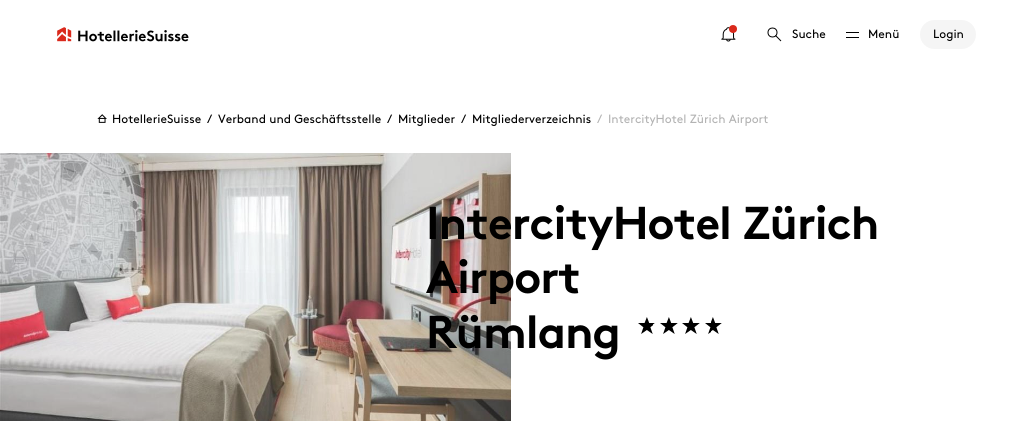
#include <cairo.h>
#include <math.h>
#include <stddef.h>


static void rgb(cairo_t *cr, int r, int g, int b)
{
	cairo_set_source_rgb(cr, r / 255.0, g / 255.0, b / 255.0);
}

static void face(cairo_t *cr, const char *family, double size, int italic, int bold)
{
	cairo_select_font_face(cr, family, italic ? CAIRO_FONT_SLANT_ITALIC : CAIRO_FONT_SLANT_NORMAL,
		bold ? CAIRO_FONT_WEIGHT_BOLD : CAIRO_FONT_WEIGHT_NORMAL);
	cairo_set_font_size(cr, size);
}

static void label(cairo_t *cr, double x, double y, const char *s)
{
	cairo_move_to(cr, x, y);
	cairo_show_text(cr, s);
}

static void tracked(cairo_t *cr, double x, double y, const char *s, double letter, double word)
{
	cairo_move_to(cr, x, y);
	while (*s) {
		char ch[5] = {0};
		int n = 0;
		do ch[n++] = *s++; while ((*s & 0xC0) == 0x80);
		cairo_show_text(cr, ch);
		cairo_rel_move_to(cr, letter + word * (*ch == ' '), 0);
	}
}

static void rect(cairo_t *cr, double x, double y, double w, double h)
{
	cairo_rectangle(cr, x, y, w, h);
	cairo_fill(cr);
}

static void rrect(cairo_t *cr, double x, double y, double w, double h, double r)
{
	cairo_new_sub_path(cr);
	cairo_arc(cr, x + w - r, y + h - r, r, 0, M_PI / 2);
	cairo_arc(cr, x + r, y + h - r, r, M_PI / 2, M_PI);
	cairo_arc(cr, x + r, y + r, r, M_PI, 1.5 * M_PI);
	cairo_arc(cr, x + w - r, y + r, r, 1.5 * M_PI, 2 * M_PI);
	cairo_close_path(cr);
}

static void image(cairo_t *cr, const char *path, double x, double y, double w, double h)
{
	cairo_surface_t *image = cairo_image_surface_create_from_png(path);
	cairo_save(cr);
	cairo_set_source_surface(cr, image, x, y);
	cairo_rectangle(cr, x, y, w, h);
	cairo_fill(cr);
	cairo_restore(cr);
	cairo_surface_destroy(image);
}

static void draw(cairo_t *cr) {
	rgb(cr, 255, 255, 255);
	cairo_paint(cr);
	image(cr, "image0.png", 57, 27, 132, 15);
	image(cr, "image1.png", 721, 27, 15, 15);
	rgb(cr, 218, 41, 28);
	cairo_arc(cr, 733, 29, 4, 0, 2 * M_PI);
	cairo_fill(cr);
	cairo_arc(cr, 772.5, 32.5, 4.5, 0, 2 * M_PI);
	rgb(cr, 0, 0, 0);
	cairo_set_line_width(cr, 1);
	cairo_stroke(cr);
	cairo_new_path(cr);
	cairo_move_to(cr, 775.5, 35.5);
	cairo_line_to(cr, 781, 41);
	cairo_stroke(cr);
	face(cr, "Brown", 12, 0, 0);
	label(cr, 792, 38, "Suche");
	rect(cr, 846, 32, 13, 1);
	label(cr, 868, 38, "Menü");
	rect(cr, 846, 37, 13, 1);
	rgb(cr, 245, 245, 245);
	rrect(cr, 920, 20, 56, 29, 14.5);
	cairo_fill(cr);
	rgb(cr, 0, 0, 0);
	label(cr, 933, 38, "Login");
	image(cr, "image2.png", 97, 114, 10, 9);
	label(cr, 112, 123, "HotellerieSuisse");
	label(cr, 207, 123, "/");
	label(cr, 218, 123, "Verband und Geschäftsstelle");
	label(cr, 387, 123, "/");
	label(cr, 398, 123, "Mitglieder");
	label(cr, 461, 123, "/");
	label(cr, 472, 123, "Mitgliederverzeichnis");
	rgb(cr, 179, 179, 179);
	label(cr, 597, 123, "/");
	label(cr, 608, 123, "IntercityHotel Zürich Airport");
	image(cr, "image3.png", 0, 153, 511, 268);
	face(cr, "Brown", 46, 0, 1);
	rgb(cr, 0, 0, 0);
	tracked(cr, 426, 239, "IntercityHotel Zürich", -0.95, 0);
	tracked(cr, 426, 293, "Airport", -0.95, 0);
	tracked(cr, 426, 348, "Rümlang", -0.95, 0);
	image(cr, "image4.png", 638, 317, 84, 17);
}

int main(void) {
	cairo_surface_t *surface = cairo_image_surface_create(CAIRO_FORMAT_RGB24, 1033, 421);
	cairo_t *cr = cairo_create(surface);
	cairo_font_options_t *options = cairo_font_options_create();
	cairo_font_options_set_hint_metrics(options, CAIRO_HINT_METRICS_OFF);
	cairo_font_options_set_hint_style(options, CAIRO_HINT_STYLE_NONE);
	cairo_set_font_options(cr, options);
	cairo_set_miter_limit(cr, 4);
	draw(cr);
	cairo_surface_write_to_png(surface, "render.png");
	cairo_font_options_destroy(options);
	cairo_destroy(cr);
	cairo_surface_destroy(surface);
	return 0;
}
